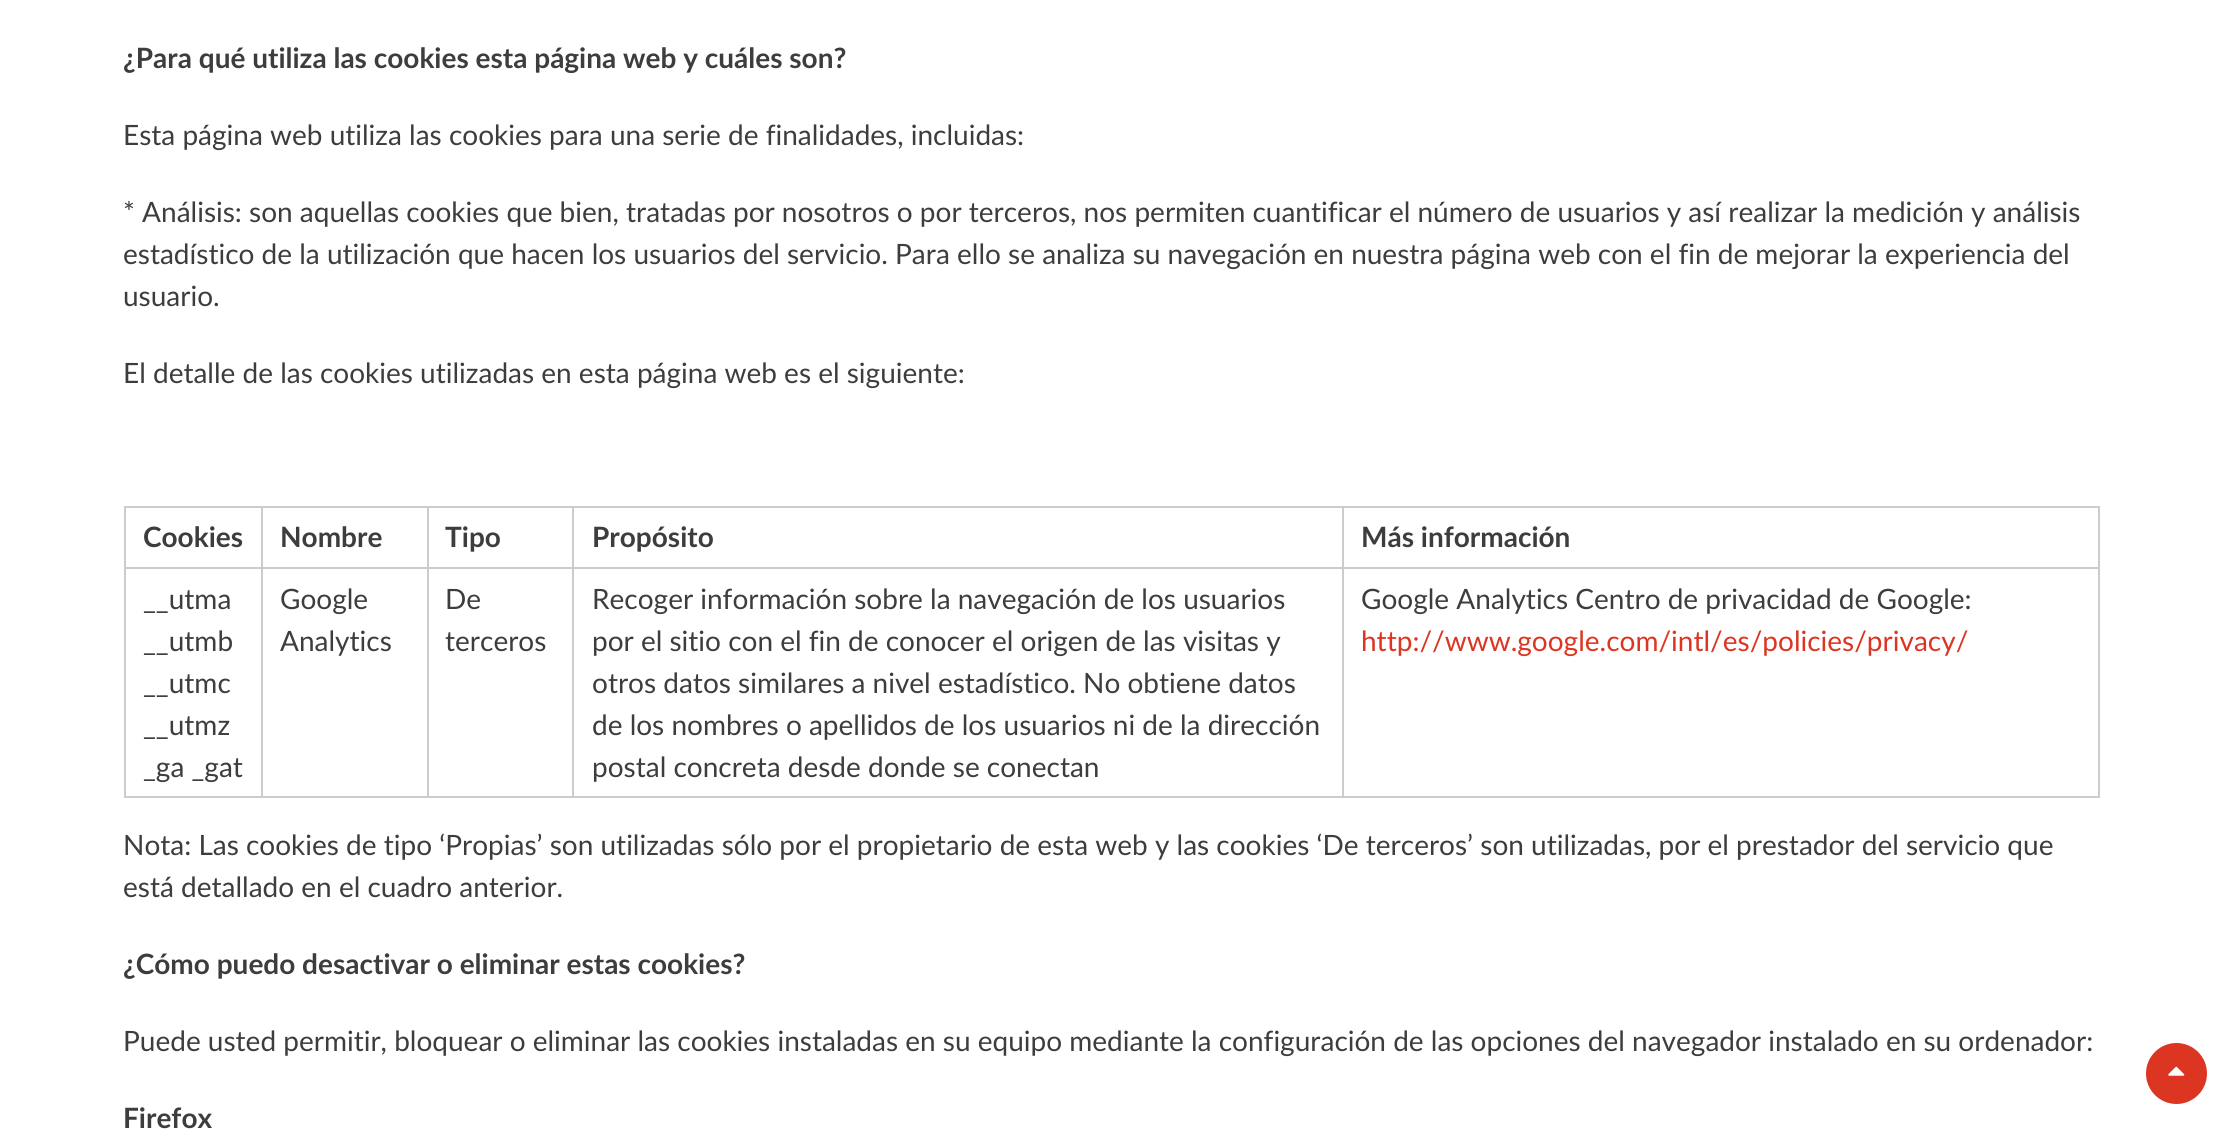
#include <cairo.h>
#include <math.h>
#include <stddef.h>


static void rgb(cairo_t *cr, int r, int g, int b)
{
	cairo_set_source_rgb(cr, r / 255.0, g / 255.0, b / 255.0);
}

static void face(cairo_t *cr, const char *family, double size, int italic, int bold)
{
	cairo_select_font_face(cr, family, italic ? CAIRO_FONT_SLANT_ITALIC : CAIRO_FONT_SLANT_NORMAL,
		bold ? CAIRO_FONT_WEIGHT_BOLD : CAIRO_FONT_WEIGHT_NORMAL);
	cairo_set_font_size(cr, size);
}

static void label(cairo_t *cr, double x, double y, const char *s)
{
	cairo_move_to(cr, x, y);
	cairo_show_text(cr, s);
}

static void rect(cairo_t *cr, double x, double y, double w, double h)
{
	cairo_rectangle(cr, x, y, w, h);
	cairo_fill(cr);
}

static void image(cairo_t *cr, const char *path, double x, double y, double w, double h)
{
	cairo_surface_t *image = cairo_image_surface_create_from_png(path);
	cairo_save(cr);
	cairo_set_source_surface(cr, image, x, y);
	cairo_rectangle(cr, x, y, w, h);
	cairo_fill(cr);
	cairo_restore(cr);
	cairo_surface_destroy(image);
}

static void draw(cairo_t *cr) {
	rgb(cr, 255, 255, 255);
	cairo_paint(cr);
	face(cr, "Lato", 28, 0, 1);
	rgb(cr, 61, 61, 61);
	label(cr, 123, 68, "¿Para qué utiliza las cookies esta página web y cuáles son?");
	face(cr, "Lato", 28, 0, 0);
	label(cr, 123, 145, "Esta página web utiliza las cookies para una serie de finalidades, incluidas:");
	label(cr, 123, 222, "* Análisis: son aquellas cookies que bien, tratadas por nosotros o por terceros, nos permiten cuantificar el número de usuarios y así realizar la medición y análisis");
	label(cr, 123, 264, "estadístico de la utilización que hacen los usuarios del servicio. Para ello se analiza su navegación en nuestra página web con el fin de mejorar la experiencia del");
	label(cr, 123, 306, "usuario.");
	label(cr, 123, 383, "El detalle de las cookies utilizadas en esta página web es el siguiente:");
	rgb(cr, 204, 204, 204);
	rect(cr, 1342, 506, 758, 2);
	rect(cr, 1342, 567, 758, 2);
	rect(cr, 2098, 567, 2, 231);
	rect(cr, 1342, 796, 758, 2);
	rect(cr, 1342, 567, 2, 231);
	rect(cr, 572, 567, 772, 2);
	rect(cr, 1342, 506, 2, 63);
	rect(cr, 572, 506, 772, 2);
	rect(cr, 572, 796, 772, 2);
	rect(cr, 572, 567, 2, 231);
	rect(cr, 427, 567, 147, 2);
	rect(cr, 572, 506, 2, 63);
	rect(cr, 427, 506, 147, 2);
	rect(cr, 427, 796, 147, 2);
	rect(cr, 427, 567, 2, 231);
	rect(cr, 261, 567, 168, 2);
	rect(cr, 427, 506, 2, 63);
	rect(cr, 261, 506, 168, 2);
	rect(cr, 261, 796, 168, 2);
	rect(cr, 261, 567, 2, 231);
	rect(cr, 124, 567, 139, 2);
	rect(cr, 261, 506, 2, 63);
	rect(cr, 124, 506, 139, 2);
	rect(cr, 124, 796, 139, 2);
	rect(cr, 124, 567, 2, 231);
	rect(cr, 124, 506, 2, 63);
	face(cr, "Lato", 28, 0, 1);
	rgb(cr, 61, 61, 61);
	label(cr, 143, 547, "Cookies");
	label(cr, 280, 547, "Nombre");
	label(cr, 445, 547, "Tipo");
	label(cr, 592, 547, "Propósito");
	rgb(cr, 204, 204, 204);
	rect(cr, 2098, 506, 2, 63);
	rgb(cr, 61, 61, 61);
	label(cr, 1361, 547, "Más información");
	face(cr, "Lato", 28, 0, 0);
	label(cr, 143, 609, "__utma");
	label(cr, 143, 651, "__utmb");
	label(cr, 143, 693, "__utmc");
	label(cr, 143, 735, "__utmz");
	label(cr, 143, 777, "_ga _gat");
	label(cr, 280, 609, "Google");
	label(cr, 280, 651, "Analytics");
	label(cr, 445, 609, "De");
	label(cr, 445, 651, "terceros");
	label(cr, 592, 609, "Recoger información sobre la navegación de los usuarios");
	label(cr, 592, 651, "por el sitio con el fin de conocer el origen de las visitas y");
	label(cr, 592, 693, "otros datos similares a nivel estadístico. No obtiene datos");
	label(cr, 592, 735, "de los nombres o apellidos de los usuarios ni de la dirección");
	label(cr, 592, 777, "postal concreta desde donde se conectan");
	label(cr, 1361, 609, "Google Analytics Centro de privacidad de Google:");
	rgb(cr, 220, 53, 34);
	label(cr, 1361, 651, "http://www.google.com/intl/es/policies/privacy/");
	rgb(cr, 61, 61, 61);
	label(cr, 123, 855, "Nota: Las cookies de tipo ‘Propias’ son utilizadas sólo por el propietario de esta web y las cookies ‘De terceros’ son utilizadas, por el prestador del servicio que");
	label(cr, 123, 897, "está detallado en el cuadro anterior.");
	face(cr, "Lato", 28, 0, 1);
	label(cr, 123, 974, "¿Cómo puedo desactivar o eliminar estas cookies?");
	face(cr, "Lato", 28, 0, 0);
	label(cr, 123, 1051, "Puede usted permitir, bloquear o eliminar las cookies instaladas en su equipo mediante la configuración de las opciones del navegador instalado en su ordenador:");
	face(cr, "Lato", 28, 0, 1);
	label(cr, 123, 1128, "Firefox");
	rgb(cr, 220, 53, 34);
	cairo_new_path(cr);
	cairo_arc(cr, 2176.5, 1073.5, 30.5, 0, 2 * M_PI);
	cairo_fill(cr);
	image(cr, "image0.png", 2168, 1066, 17, 10);
}

int main(void) {
	cairo_surface_t *surface = cairo_image_surface_create(CAIRO_FORMAT_RGB24, 2223, 1138);
	cairo_t *cr = cairo_create(surface);
	cairo_font_options_t *options = cairo_font_options_create();
	cairo_font_options_set_hint_metrics(options, CAIRO_HINT_METRICS_OFF);
	cairo_font_options_set_hint_style(options, CAIRO_HINT_STYLE_NONE);
	cairo_set_font_options(cr, options);
	cairo_set_miter_limit(cr, 4);
	draw(cr);
	cairo_surface_write_to_png(surface, "render.png");
	cairo_font_options_destroy(options);
	cairo_destroy(cr);
	cairo_surface_destroy(surface);
	return 0;
}
